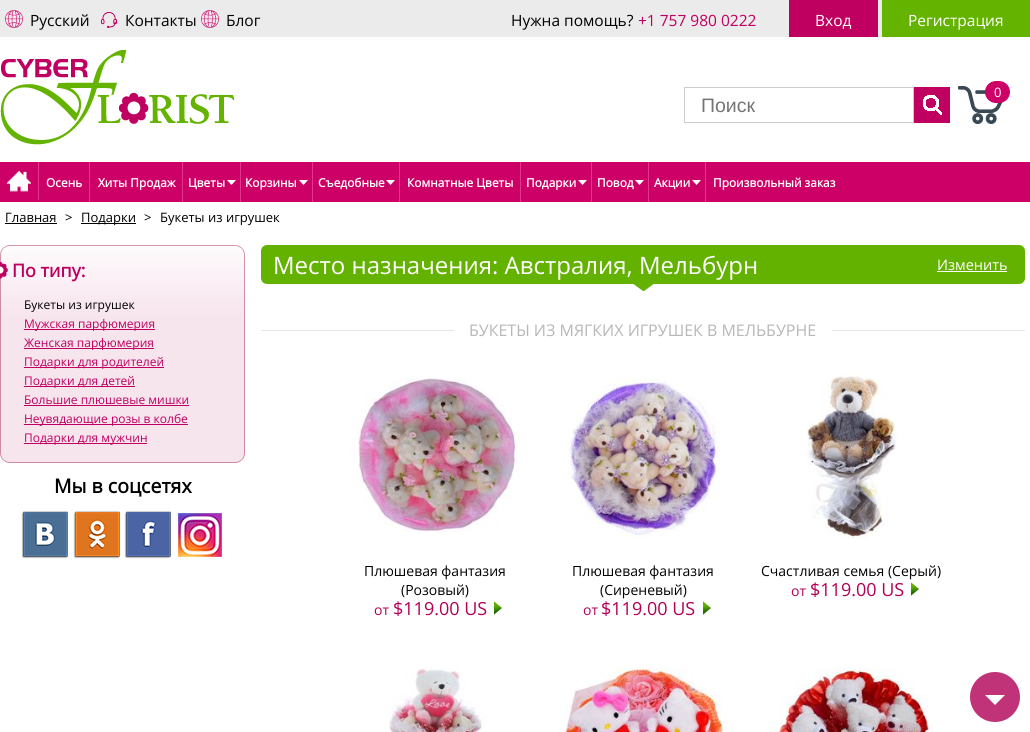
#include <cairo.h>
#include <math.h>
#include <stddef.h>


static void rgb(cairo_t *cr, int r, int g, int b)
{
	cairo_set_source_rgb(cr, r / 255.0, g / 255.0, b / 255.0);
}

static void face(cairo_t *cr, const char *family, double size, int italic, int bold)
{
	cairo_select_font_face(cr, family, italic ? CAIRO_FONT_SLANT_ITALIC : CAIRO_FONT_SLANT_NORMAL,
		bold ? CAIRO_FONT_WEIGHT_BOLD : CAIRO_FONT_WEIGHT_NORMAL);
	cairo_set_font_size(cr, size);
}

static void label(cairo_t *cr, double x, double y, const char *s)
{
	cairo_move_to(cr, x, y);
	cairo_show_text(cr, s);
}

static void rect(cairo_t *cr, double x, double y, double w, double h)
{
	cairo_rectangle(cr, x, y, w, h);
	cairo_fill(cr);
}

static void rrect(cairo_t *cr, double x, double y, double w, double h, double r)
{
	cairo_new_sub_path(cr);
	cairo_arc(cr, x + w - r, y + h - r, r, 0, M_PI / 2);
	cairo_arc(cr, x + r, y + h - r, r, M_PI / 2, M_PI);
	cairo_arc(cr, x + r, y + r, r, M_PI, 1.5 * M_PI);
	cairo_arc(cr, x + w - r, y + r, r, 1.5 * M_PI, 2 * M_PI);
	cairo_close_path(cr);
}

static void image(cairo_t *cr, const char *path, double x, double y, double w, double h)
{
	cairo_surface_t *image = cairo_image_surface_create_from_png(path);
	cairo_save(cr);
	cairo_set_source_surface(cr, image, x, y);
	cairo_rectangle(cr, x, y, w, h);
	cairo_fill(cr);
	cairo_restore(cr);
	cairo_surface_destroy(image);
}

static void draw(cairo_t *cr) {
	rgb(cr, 255, 255, 255);
	cairo_paint(cr);
	rgb(cr, 235, 235, 235);
	rect(cr, 0, 0, 882, 37);
	image(cr, "image0.png", 5, 10, 18, 18);
	face(cr, "Open Sans", 15.5, 0, 0);
	rgb(cr, 0, 0, 0);
	label(cr, 30, 26, "Русский");
	image(cr, "image1.png", 101, 12, 16, 16);
	label(cr, 125, 26, "Контакты");
	image(cr, "image0.png", 201, 10, 18, 18);
	label(cr, 226, 26, "Блог");
	label(cr, 511, 26, "Нужна помощь?");
	rgb(cr, 191, 0, 96);
	label(cr, 638, 26, "+1 757 980 0222");
	rect(cr, 789, 0, 89, 37);
	rgb(cr, 255, 255, 255);
	label(cr, 815, 26, "Вход");
	rgb(cr, 99, 179, 0);
	rect(cr, 882, 0, 148, 37);
	rgb(cr, 255, 255, 255);
	label(cr, 908, 26, "Регистрация");
	image(cr, "image2.png", 0, 50, 235, 95);
	image(cr, "image3.png", 958, 86, 45, 38);
	rgb(cr, 204, 0, 102);
	rrect(cr, 985, 81, 25, 22, 11);
	cairo_fill(cr);
	face(cr, "Open Sans", 13, 0, 0);
	rgb(cr, 255, 255, 255);
	label(cr, 994, 97, "0");
	cairo_rectangle(cr, 684.5, 87.5, 229, 35);
	rgb(cr, 204, 204, 204);
	cairo_set_line_width(cr, 1);
	cairo_stroke(cr);
	face(cr, "Liberation Sans", 19.5, 0, 0);
	rgb(cr, 117, 117, 117);
	label(cr, 701, 112, "Поиск");
	rgb(cr, 191, 0, 96);
	rect(cr, 914, 87, 36, 36);
	image(cr, "image4.png", 923, 95, 19, 20);
	rgb(cr, 204, 0, 102);
	rect(cr, 0, 162, 1030, 40);
	rgb(cr, 230, 53, 141);
	rect(cr, 38, 162, 1, 38);
	image(cr, "image5.png", 7, 171, 24, 21);
	rect(cr, 89, 162, 1, 40);
	face(cr, "Open Sans", 11.9, 0, 1);
	rgb(cr, 255, 255, 255);
	label(cr, 46, 187, "Осень");
	rgb(cr, 230, 53, 141);
	rect(cr, 182, 162, 1, 40);
	rgb(cr, 255, 255, 255);
	label(cr, 98, 187, "Хиты Продаж");
	rgb(cr, 230, 53, 141);
	rect(cr, 240, 162, 1, 40);
	image(cr, "image6.png", 227, 180, 9, 5);
	rgb(cr, 255, 255, 255);
	label(cr, 188, 187, "Цветы");
	rgb(cr, 230, 53, 141);
	rect(cr, 312, 162, 1, 40);
	image(cr, "image6.png", 299, 180, 9, 5);
	rgb(cr, 255, 255, 255);
	label(cr, 245, 187, "Корзины");
	rgb(cr, 230, 53, 141);
	rect(cr, 399, 162, 1, 40);
	image(cr, "image6.png", 386, 180, 9, 5);
	rgb(cr, 255, 255, 255);
	label(cr, 318, 187, "Съедобные");
	rgb(cr, 230, 53, 141);
	rect(cr, 520, 162, 1, 40);
	rgb(cr, 255, 255, 255);
	label(cr, 407, 187, "Комнатные Цветы");
	rgb(cr, 230, 53, 141);
	rect(cr, 591, 162, 1, 40);
	image(cr, "image6.png", 578, 180, 9, 5);
	rgb(cr, 255, 255, 255);
	label(cr, 526, 187, "Подарки");
	rgb(cr, 230, 53, 141);
	rect(cr, 648, 162, 1, 40);
	image(cr, "image6.png", 635, 180, 9, 5);
	rgb(cr, 255, 255, 255);
	label(cr, 597, 187, "Повод");
	rgb(cr, 230, 53, 141);
	rect(cr, 705, 162, 1, 40);
	image(cr, "image6.png", 692, 180, 9, 5);
	rgb(cr, 255, 255, 255);
	label(cr, 654, 187, "Акции");
	label(cr, 713, 187, "Произвольный заказ");
	face(cr, "Open Sans", 13, 0, 0);
	rgb(cr, 0, 0, 0);
	label(cr, 5, 222, "Главная");
	rect(cr, 5, 223, 52, 1);
	label(cr, 65, 222, ">");
	rect(cr, 81, 223, 55, 1);
	label(cr, 81, 222, "Подарки");
	label(cr, 144, 222, ">");
	label(cr, 160, 222, "Букеты из игрушек");
	image(cr, "image7.png", 0, 452, 245, 11);
	image(cr, "image8.png", 0, 245, 245, 207);
	image(cr, "image9.png", 0, 262, 8, 17);
	face(cr, "Open Sans", 18, 0, 1);
	rgb(cr, 191, 0, 96);
	label(cr, 12, 277, "По типу:");
	face(cr, "Open Sans", 12, 0, 0);
	rgb(cr, 0, 0, 0);
	label(cr, 24, 309, "Букеты из игрушек");
	rgb(cr, 191, 0, 96);
	rect(cr, 24, 329, 131, 1);
	label(cr, 24, 328, "Мужская парфюмерия");
	rect(cr, 24, 348, 130, 1);
	label(cr, 24, 347, "Женская парфюмерия");
	rect(cr, 24, 367, 140, 1);
	label(cr, 24, 366, "Подарки для родителей");
	rect(cr, 24, 386, 111, 1);
	label(cr, 24, 385, "Подарки для детей");
	label(cr, 24, 404, "Большие плюшевые мишки");
	rect(cr, 24, 405, 165, 1);
	rect(cr, 24, 424, 164, 1);
	label(cr, 24, 423, "Неувядающие розы в колбе");
	rect(cr, 24, 443, 123, 1);
	label(cr, 24, 442, "Подарки для мужчин");
	face(cr, "Open Sans", 19.5, 0, 1);
	rgb(cr, 0, 0, 0);
	label(cr, 54, 493, "Мы в соцсетях");
	image(cr, "image10.png", 21, 511, 47, 48);
	image(cr, "image11.png", 73, 511, 47, 48);
	image(cr, "image12.png", 124, 511, 47, 48);
	image(cr, "image13.png", 178, 513, 44, 44);
	rgb(cr, 99, 178, 0);
	rrect(cr, 261, 245, 764, 39, 6);
	cairo_fill(cr);
	face(cr, "Open Sans", 24, 0, 0);
	rgb(cr, 255, 255, 255);
	label(cr, 273, 274, "Место назначения: Австралия, Мельбурн");
	face(cr, "Open Sans", 14.5, 0, 0);
	label(cr, 937, 270, "Изменить");
	rect(cr, 937, 271, 70, 1);
	rgb(cr, 99, 178, 0);
	cairo_new_path(cr);
	cairo_move_to(cr, 632, 283);
	cairo_line_to(cr, 655, 283);
	cairo_line_to(cr, 644, 291);
	cairo_line_to(cr, 643, 291);
	cairo_close_path(cr);
	cairo_fill(cr);
	rgb(cr, 229, 229, 229);
	rect(cr, 261, 330, 764, 1);
	rgb(cr, 255, 255, 255);
	rect(cr, 454, 330, 378, 1);
	face(cr, "Open Sans", 16, 0, 0);
	rgb(cr, 183, 183, 183);
	label(cr, 469, 336, "БУКЕТЫ ИЗ МЯГКИХ ИГРУШЕК В МЕЛЬБУРНЕ");
	image(cr, "image14.png", 351, 378, 168, 155);
	face(cr, "Open Sans", 14, 0, 0);
	rgb(cr, 0, 0, 0);
	label(cr, 364, 576, "Плюшевая фантазия");
	label(cr, 401, 595, "(Розовый)");
	rgb(cr, 178, 0, 86);
	label(cr, 374, 615, "от");
	face(cr, "Open Sans", 18, 0, 0);
	label(cr, 393, 615, "$119.00 US");
	image(cr, "image15.png", 494, 601, 8, 14);
	image(cr, "image16.png", 567, 378, 153, 160);
	face(cr, "Open Sans", 14, 0, 0);
	rgb(cr, 0, 0, 0);
	label(cr, 572, 576, "Плюшевая фантазия");
	label(cr, 600, 595, "(Сиреневый)");
	rgb(cr, 178, 0, 86);
	label(cr, 583, 615, "от");
	face(cr, "Open Sans", 18, 0, 0);
	label(cr, 601, 615, "$119.00 US");
	image(cr, "image15.png", 703, 601, 8, 14);
	image(cr, "image17.png", 807, 373, 91, 166);
	face(cr, "Open Sans", 14, 0, 0);
	rgb(cr, 0, 0, 0);
	label(cr, 761, 576, "Счастливая семья (Серый)");
	rgb(cr, 178, 0, 86);
	label(cr, 791, 596, "от");
	face(cr, "Open Sans", 18, 0, 0);
	label(cr, 810, 596, "$119.00 US");
	image(cr, "image15.png", 911, 582, 8, 14);
	image(cr, "image18.png", 389, 668, 96, 64);
	image(cr, "image19.png", 559, 667, 168, 65);
	image(cr, "image20.png", 767, 667, 162, 65);
	rgb(cr, 193, 51, 120);
	cairo_arc(cr, 995, 697, 25, 0, 2 * M_PI);
	cairo_fill(cr);
	rgb(cr, 255, 255, 255);
	cairo_new_path(cr);
	cairo_move_to(cr, 985, 695);
	cairo_line_to(cr, 1005, 695);
	cairo_line_to(cr, 995, 705);
	cairo_close_path(cr);
	cairo_fill(cr);
}

int main(void) {
	cairo_surface_t *surface = cairo_image_surface_create(CAIRO_FORMAT_RGB24, 1030, 732);
	cairo_t *cr = cairo_create(surface);
	cairo_font_options_t *options = cairo_font_options_create();
	cairo_font_options_set_hint_metrics(options, CAIRO_HINT_METRICS_OFF);
	cairo_font_options_set_hint_style(options, CAIRO_HINT_STYLE_NONE);
	cairo_set_font_options(cr, options);
	cairo_set_miter_limit(cr, 4);
	draw(cr);
	cairo_surface_write_to_png(surface, "render.png");
	cairo_font_options_destroy(options);
	cairo_destroy(cr);
	cairo_surface_destroy(surface);
	return 0;
}
